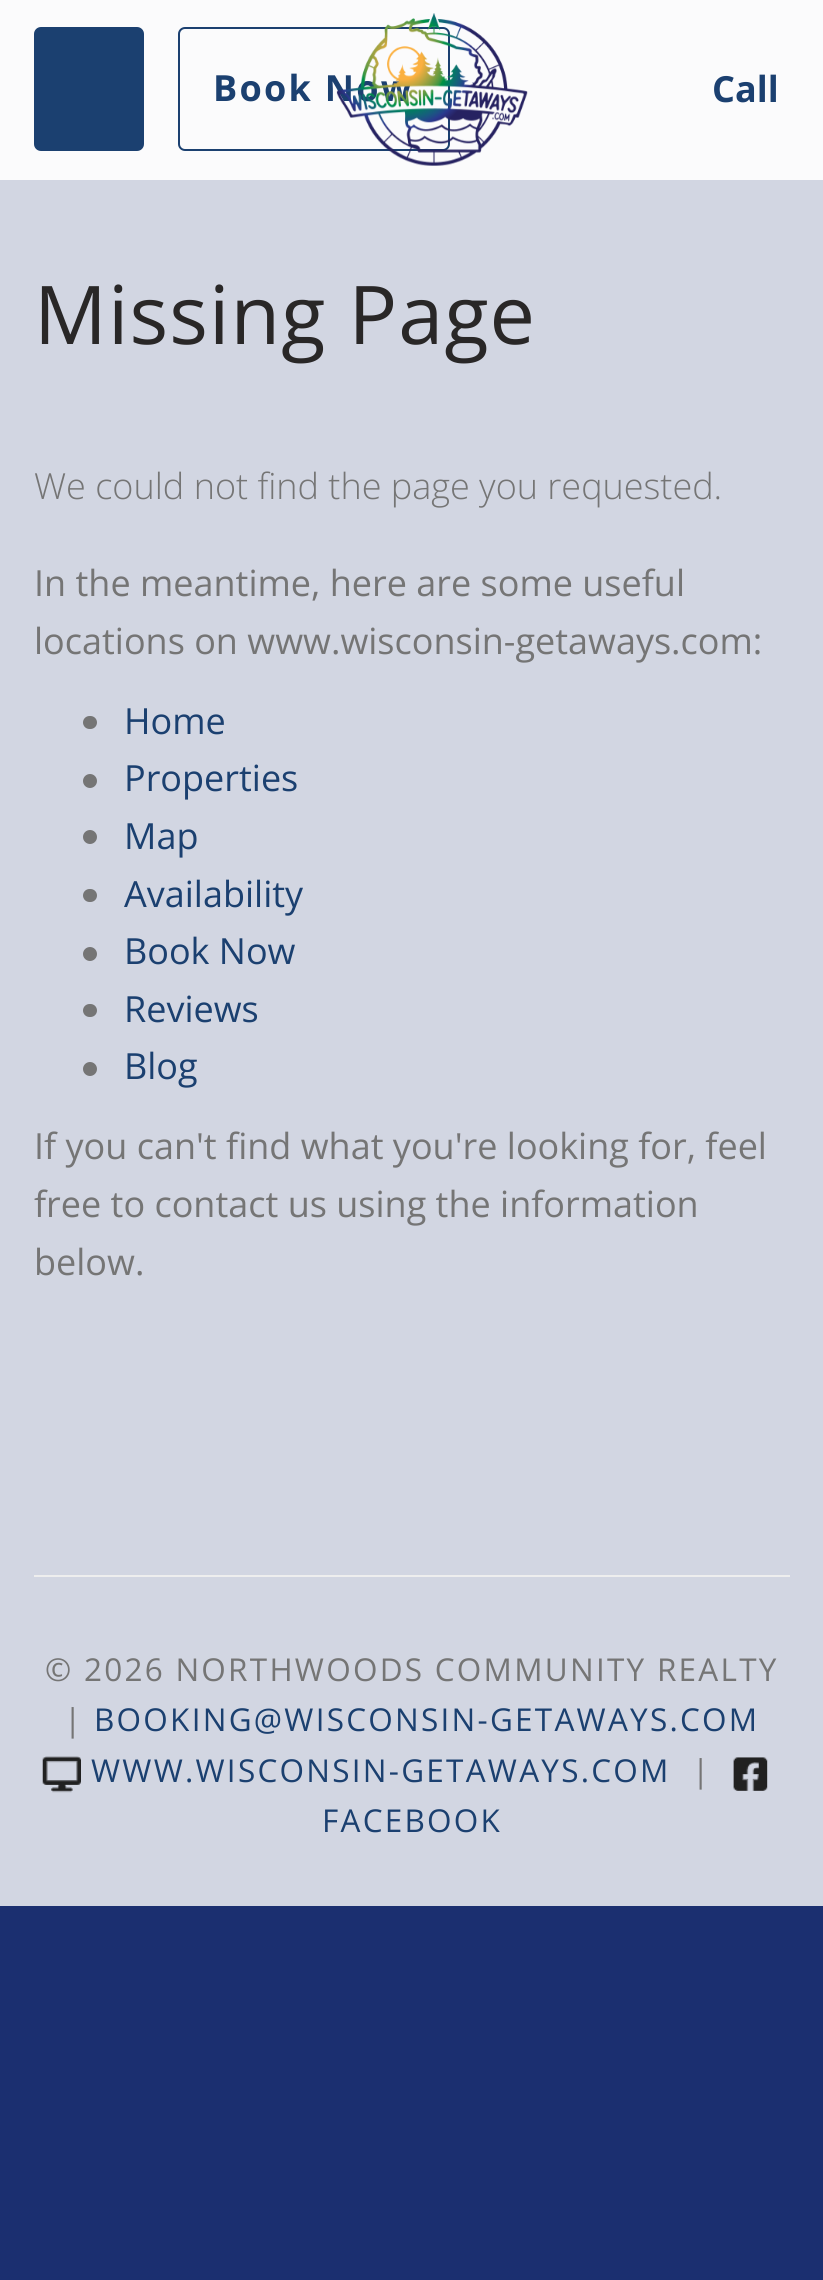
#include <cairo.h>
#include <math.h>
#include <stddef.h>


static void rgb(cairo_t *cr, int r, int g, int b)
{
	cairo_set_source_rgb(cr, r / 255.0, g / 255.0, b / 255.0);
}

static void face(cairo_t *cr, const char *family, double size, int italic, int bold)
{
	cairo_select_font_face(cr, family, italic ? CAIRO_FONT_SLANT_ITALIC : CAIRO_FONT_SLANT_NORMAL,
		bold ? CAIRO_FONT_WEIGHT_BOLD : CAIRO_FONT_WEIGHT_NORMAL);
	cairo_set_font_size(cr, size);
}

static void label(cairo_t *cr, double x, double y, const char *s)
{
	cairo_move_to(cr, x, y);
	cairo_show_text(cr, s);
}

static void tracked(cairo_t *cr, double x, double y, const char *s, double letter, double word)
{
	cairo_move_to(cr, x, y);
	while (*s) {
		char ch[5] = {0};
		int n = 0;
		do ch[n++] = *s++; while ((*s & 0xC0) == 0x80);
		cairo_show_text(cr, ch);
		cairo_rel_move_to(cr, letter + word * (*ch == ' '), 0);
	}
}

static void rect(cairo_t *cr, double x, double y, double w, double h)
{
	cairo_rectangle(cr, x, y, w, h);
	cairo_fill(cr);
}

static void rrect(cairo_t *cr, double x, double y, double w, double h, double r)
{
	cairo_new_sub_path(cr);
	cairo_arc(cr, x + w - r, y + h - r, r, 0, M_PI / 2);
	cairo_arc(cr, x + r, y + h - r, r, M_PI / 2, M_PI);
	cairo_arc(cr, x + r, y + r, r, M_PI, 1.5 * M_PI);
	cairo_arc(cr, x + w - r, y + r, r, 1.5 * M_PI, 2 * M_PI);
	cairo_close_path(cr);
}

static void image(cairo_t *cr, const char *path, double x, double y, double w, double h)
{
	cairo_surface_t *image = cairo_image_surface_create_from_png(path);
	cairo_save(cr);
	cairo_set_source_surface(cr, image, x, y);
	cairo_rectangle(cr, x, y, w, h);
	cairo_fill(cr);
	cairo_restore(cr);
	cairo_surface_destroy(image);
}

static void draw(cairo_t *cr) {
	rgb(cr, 27, 47, 112);
	cairo_paint(cr);
	rgb(cr, 251, 251, 252);
	rect(cr, 0, 0, 823, 180);
	rgb(cr, 27, 64, 112);
	rrect(cr, 35, 28, 108, 122, 6);
	cairo_fill_preserve(cr);
	cairo_stroke(cr);
	rrect(cr, 179, 28, 270, 122, 6);
	cairo_stroke(cr);
	face(cr, "Open Sans", 36, 0, 1);
	tracked(cr, 213, 101, "Book Now", 2.25, 0);
	image(cr, "image0.png", 336, 13, 192, 153);
	label(cr, 712, 102, "Call");
	rgb(cr, 210, 214, 226);
	rect(cr, 0, 180, 823, 1726);
	face(cr, "Open Sans", 81, 0, 0);
	rgb(cr, 41, 39, 39);
	tracked(cr, 34, 344, "Missing Page", 1.1, 0);
	face(cr, "Open Sans Light", 36, 0, 0);
	rgb(cr, 117, 117, 117);
	label(cr, 34, 499, "We could not find the page you requested.");
	face(cr, "Open Sans", 36, 0, 0);
	label(cr, 34, 596, "In the meantime, here are some useful");
	label(cr, 34, 654, "locations on www.wisconsin-getaways.com:");
	rrect(cr, 83, 716, 14, 13, 6.5);
	cairo_fill(cr);
	rgb(cr, 27, 64, 112);
	label(cr, 124, 734, "Home");
	rgb(cr, 117, 117, 117);
	cairo_new_path(cr);
	cairo_arc(cr, 90, 781, 7, 0, 2 * M_PI);
	cairo_fill(cr);
	rgb(cr, 27, 64, 112);
	label(cr, 124, 791, "Properties");
	rgb(cr, 117, 117, 117);
	cairo_new_path(cr);
	cairo_arc(cr, 90, 837, 7, 0, 2 * M_PI);
	cairo_fill(cr);
	rgb(cr, 27, 64, 112);
	label(cr, 124, 849, "Map");
	rgb(cr, 117, 117, 117);
	rrect(cr, 83, 889, 14, 13, 6.5);
	cairo_fill(cr);
	rgb(cr, 27, 64, 112);
	label(cr, 124, 907, "Availability");
	rgb(cr, 117, 117, 117);
	cairo_new_path(cr);
	cairo_arc(cr, 90, 954, 7, 0, 2 * M_PI);
	cairo_fill(cr);
	rgb(cr, 27, 64, 112);
	label(cr, 124, 964, "Book Now");
	rgb(cr, 117, 117, 117);
	rrect(cr, 83, 1004, 14, 13, 6.5);
	cairo_fill(cr);
	rgb(cr, 27, 64, 112);
	label(cr, 124, 1022, "Reviews");
	rgb(cr, 117, 117, 117);
	cairo_new_path(cr);
	cairo_arc(cr, 90, 1069, 7, 0, 2 * M_PI);
	cairo_fill(cr);
	rgb(cr, 27, 64, 112);
	label(cr, 124, 1079, "Blog");
	rgb(cr, 117, 117, 117);
	label(cr, 34, 1159, "If you can't find what you're looking for, feel");
	label(cr, 34, 1217, "free to contact us using the information");
	label(cr, 34, 1275, "below.");
	rgb(cr, 238, 238, 238);
	rect(cr, 34, 1575, 756, 2);
	face(cr, "Open Sans", 31.5, 0, 0);
	rgb(cr, 117, 117, 117);
	tracked(cr, 45, 1681, "© 2026 NORTHWOODS COMMUNITY REALTY", 2.25, 0);
	tracked(cr, 64, 1731, "|", 2.25, 0);
	rgb(cr, 27, 64, 112);
	tracked(cr, 94, 1731, "BOOKING@WISCONSIN-GETAWAYS.COM", 2.25, 0);
	image(cr, "image1.png", 42, 1756, 39, 37);
	tracked(cr, 91, 1782, "WWW.WISCONSIN-GETAWAYS.COM", 2.25, 0);
	rgb(cr, 117, 117, 117);
	tracked(cr, 692, 1782, "|", 2.25, 0);
	image(cr, "image2.png", 733, 1757, 35, 34);
	rgb(cr, 27, 64, 112);
	tracked(cr, 322, 1832, "FACEBOOK", 2.25, 0);
}

int main(void) {
	cairo_surface_t *surface = cairo_image_surface_create(CAIRO_FORMAT_RGB24, 823, 2280);
	cairo_t *cr = cairo_create(surface);
	cairo_font_options_t *options = cairo_font_options_create();
	cairo_font_options_set_hint_metrics(options, CAIRO_HINT_METRICS_OFF);
	cairo_font_options_set_hint_style(options, CAIRO_HINT_STYLE_NONE);
	cairo_set_font_options(cr, options);
	cairo_set_miter_limit(cr, 4);
	draw(cr);
	cairo_surface_write_to_png(surface, "render.png");
	cairo_font_options_destroy(options);
	cairo_destroy(cr);
	cairo_surface_destroy(surface);
	return 0;
}
